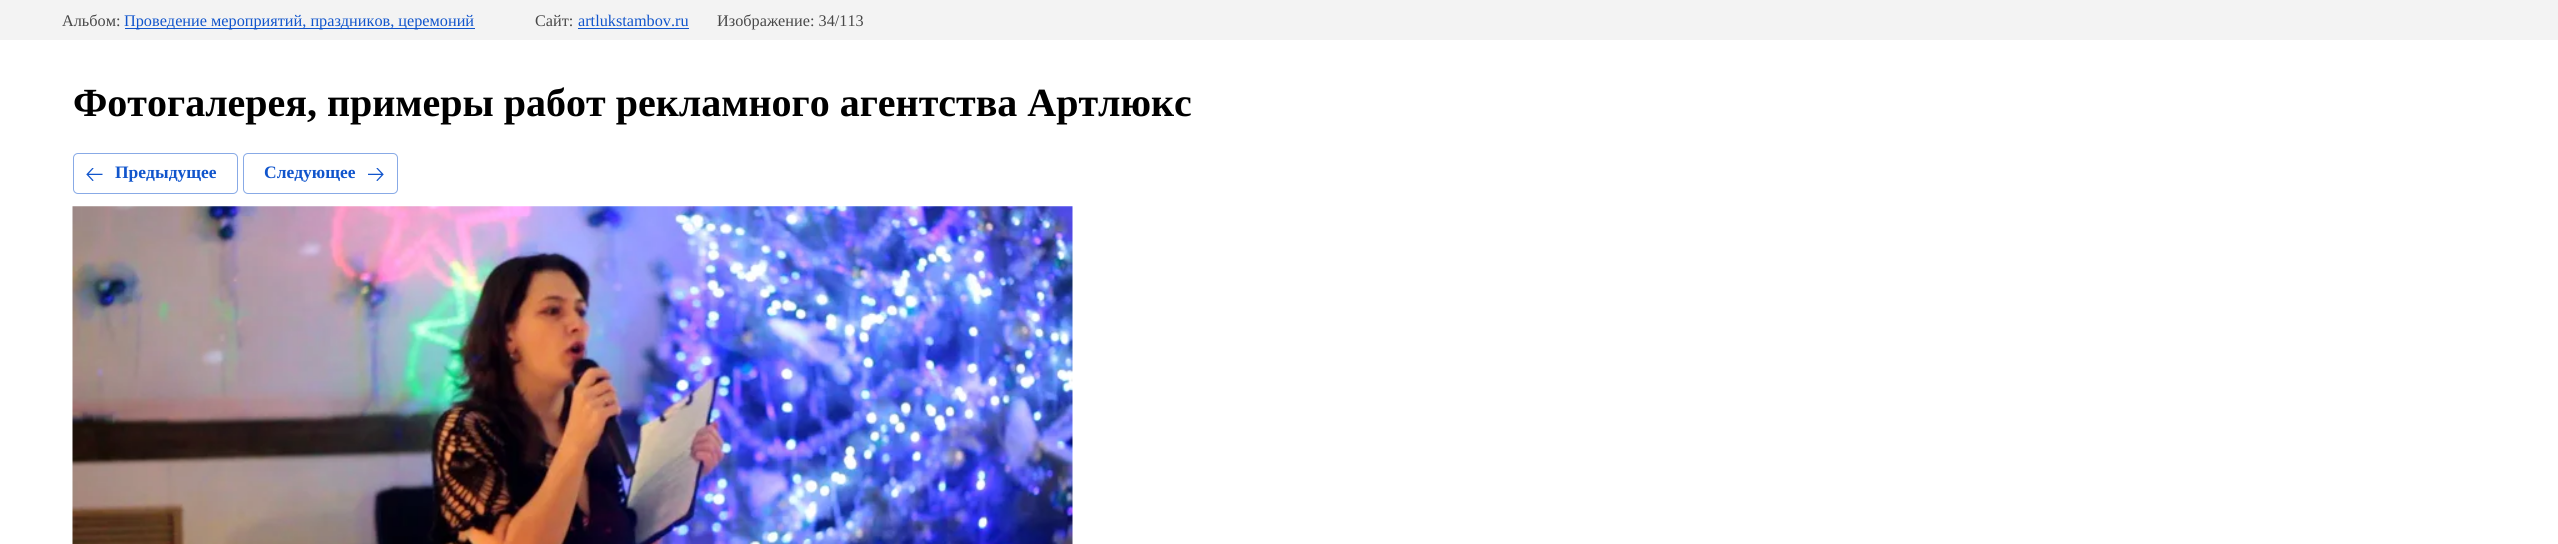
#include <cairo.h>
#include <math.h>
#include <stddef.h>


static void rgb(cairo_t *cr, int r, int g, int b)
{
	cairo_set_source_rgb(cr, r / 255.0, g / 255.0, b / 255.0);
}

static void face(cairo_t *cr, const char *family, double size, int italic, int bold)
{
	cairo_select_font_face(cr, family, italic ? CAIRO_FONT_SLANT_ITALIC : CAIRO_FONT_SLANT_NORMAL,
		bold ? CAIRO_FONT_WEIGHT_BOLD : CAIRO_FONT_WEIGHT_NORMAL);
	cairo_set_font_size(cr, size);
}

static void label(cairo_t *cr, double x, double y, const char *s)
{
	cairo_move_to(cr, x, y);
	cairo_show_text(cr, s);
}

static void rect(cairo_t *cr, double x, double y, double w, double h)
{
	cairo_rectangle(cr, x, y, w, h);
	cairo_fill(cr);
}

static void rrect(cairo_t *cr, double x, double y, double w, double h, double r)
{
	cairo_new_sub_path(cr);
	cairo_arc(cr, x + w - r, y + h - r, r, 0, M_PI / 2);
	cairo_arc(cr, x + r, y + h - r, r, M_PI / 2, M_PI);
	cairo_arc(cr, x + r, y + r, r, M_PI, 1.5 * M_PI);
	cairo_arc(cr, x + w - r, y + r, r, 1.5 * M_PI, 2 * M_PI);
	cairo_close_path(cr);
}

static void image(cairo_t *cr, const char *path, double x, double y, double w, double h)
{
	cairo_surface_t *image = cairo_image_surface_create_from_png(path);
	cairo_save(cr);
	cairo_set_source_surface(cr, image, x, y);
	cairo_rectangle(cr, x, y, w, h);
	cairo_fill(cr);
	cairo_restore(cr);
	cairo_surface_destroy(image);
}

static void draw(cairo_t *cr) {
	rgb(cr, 255, 255, 255);
	cairo_paint(cr);
	rgb(cr, 243, 243, 243);
	rect(cr, 0, 0, 2558, 40);
	face(cr, "Liberation Serif", 16.25, 0, 0);
	rgb(cr, 72, 72, 72);
	label(cr, 62, 26, "Альбом:");
	rgb(cr, 17, 85, 204);
	rect(cr, 125, 28, 350, 1);
	label(cr, 124, 26, "Проведение мероприятий, праздников, церемоний");
	rgb(cr, 72, 72, 72);
	label(cr, 535, 26, "Сайт:");
	rgb(cr, 17, 85, 204);
	label(cr, 578, 26, "artlukstambov.ru");
	rect(cr, 578, 28, 111, 1);
	rgb(cr, 72, 72, 72);
	label(cr, 717, 26, "Изображение: 34/113");
	face(cr, "Liberation Serif", 40, 0, 1);
	rgb(cr, 0, 0, 0);
	label(cr, 73, 116, "Фотогалерея, примеры работ рекламного агентства Артлюкс");
	rrect(cr, 73.5, 153.5, 164, 40, 4.5);
	rgb(cr, 136, 170, 230);
	cairo_set_line_width(cr, 1);
	cairo_stroke(cr);
	image(cr, "image0.png", 86, 168, 17, 13);
	face(cr, "Liberation Serif", 17.5, 0, 1);
	rgb(cr, 17, 85, 204);
	label(cr, 115, 178, "Предыдущее");
	rrect(cr, 243.5, 153.5, 154, 40, 4.5);
	rgb(cr, 136, 170, 230);
	cairo_stroke(cr);
	rgb(cr, 17, 85, 204);
	label(cr, 264, 178, "Следующее");
	image(cr, "image1.png", 368, 168, 16, 13);
	image(cr, "image2.png", 72, 206, 1001, 338);
}

int main(void) {
	cairo_surface_t *surface = cairo_image_surface_create(CAIRO_FORMAT_RGB24, 2558, 544);
	cairo_t *cr = cairo_create(surface);
	cairo_font_options_t *options = cairo_font_options_create();
	cairo_font_options_set_hint_metrics(options, CAIRO_HINT_METRICS_OFF);
	cairo_font_options_set_hint_style(options, CAIRO_HINT_STYLE_NONE);
	cairo_set_font_options(cr, options);
	cairo_set_miter_limit(cr, 4);
	draw(cr);
	cairo_surface_write_to_png(surface, "render.png");
	cairo_font_options_destroy(options);
	cairo_destroy(cr);
	cairo_surface_destroy(surface);
	return 0;
}
